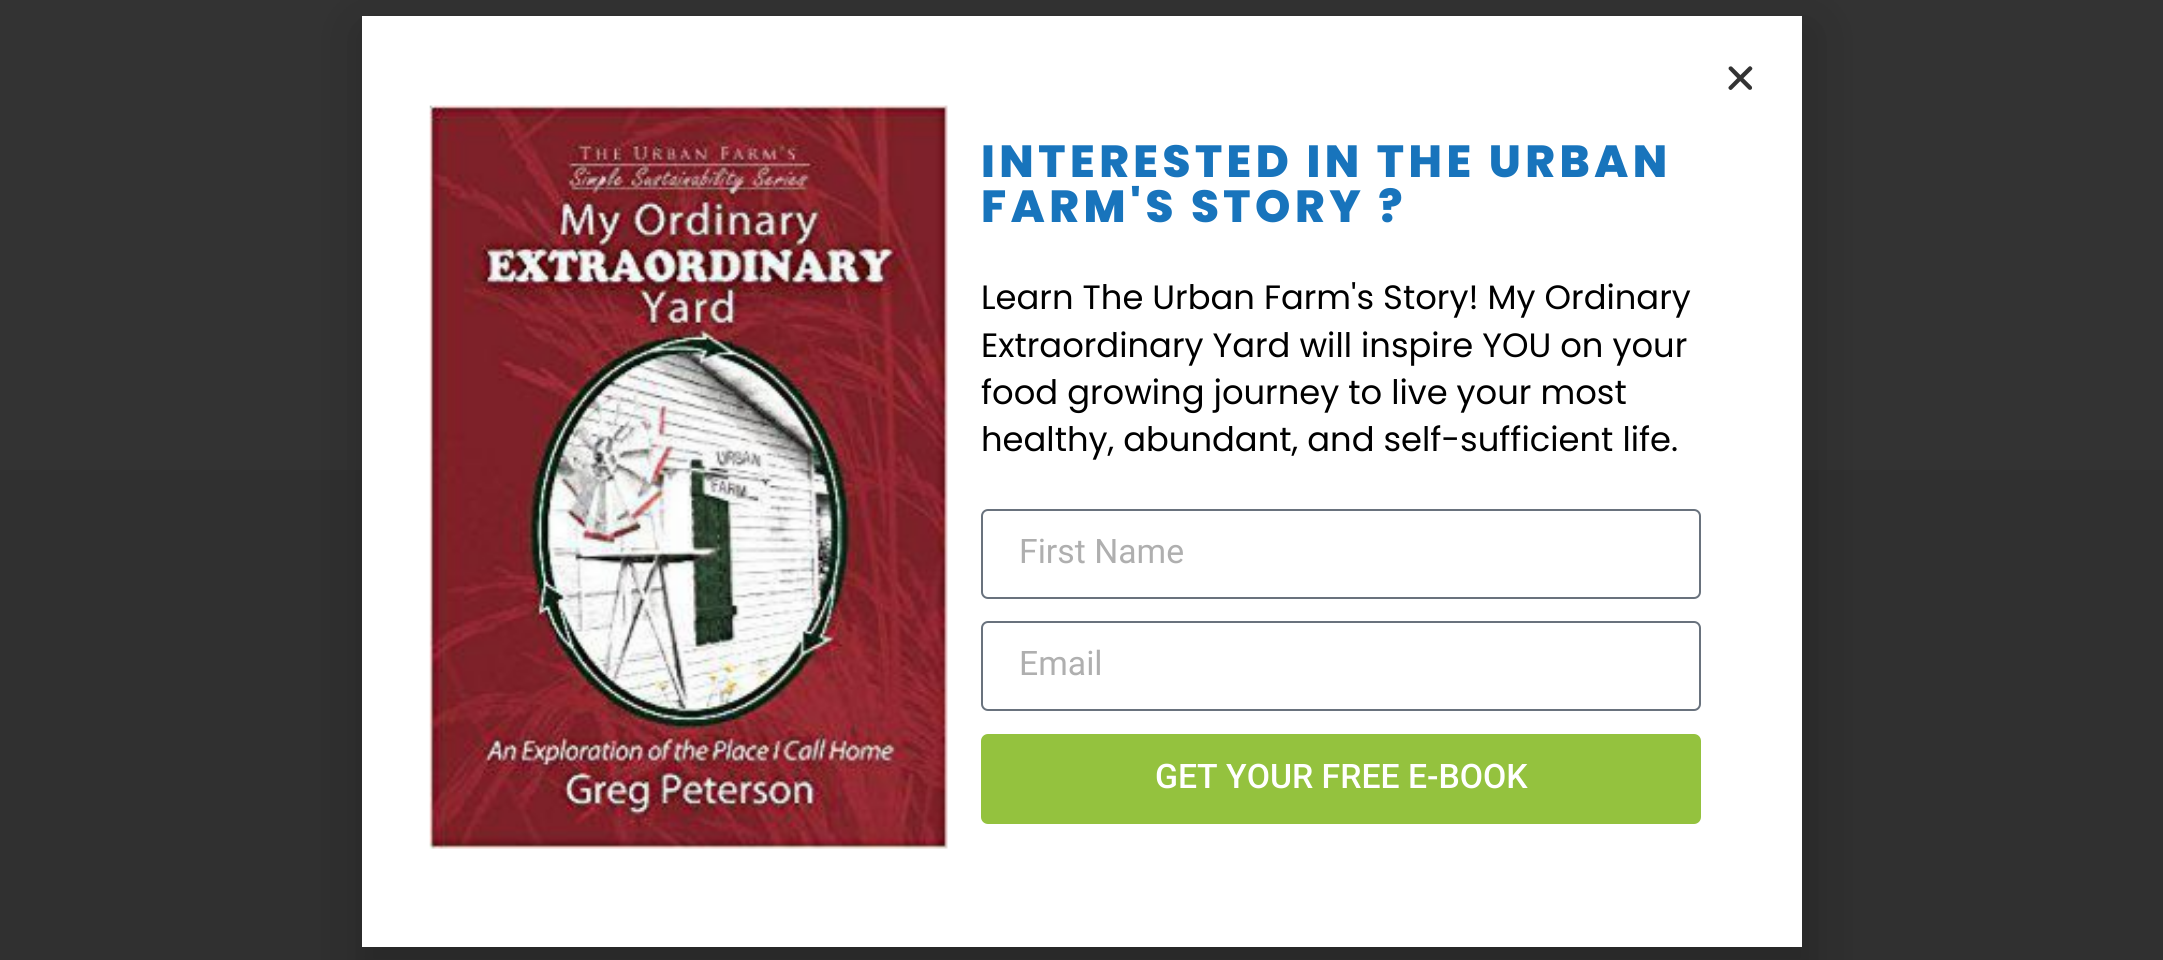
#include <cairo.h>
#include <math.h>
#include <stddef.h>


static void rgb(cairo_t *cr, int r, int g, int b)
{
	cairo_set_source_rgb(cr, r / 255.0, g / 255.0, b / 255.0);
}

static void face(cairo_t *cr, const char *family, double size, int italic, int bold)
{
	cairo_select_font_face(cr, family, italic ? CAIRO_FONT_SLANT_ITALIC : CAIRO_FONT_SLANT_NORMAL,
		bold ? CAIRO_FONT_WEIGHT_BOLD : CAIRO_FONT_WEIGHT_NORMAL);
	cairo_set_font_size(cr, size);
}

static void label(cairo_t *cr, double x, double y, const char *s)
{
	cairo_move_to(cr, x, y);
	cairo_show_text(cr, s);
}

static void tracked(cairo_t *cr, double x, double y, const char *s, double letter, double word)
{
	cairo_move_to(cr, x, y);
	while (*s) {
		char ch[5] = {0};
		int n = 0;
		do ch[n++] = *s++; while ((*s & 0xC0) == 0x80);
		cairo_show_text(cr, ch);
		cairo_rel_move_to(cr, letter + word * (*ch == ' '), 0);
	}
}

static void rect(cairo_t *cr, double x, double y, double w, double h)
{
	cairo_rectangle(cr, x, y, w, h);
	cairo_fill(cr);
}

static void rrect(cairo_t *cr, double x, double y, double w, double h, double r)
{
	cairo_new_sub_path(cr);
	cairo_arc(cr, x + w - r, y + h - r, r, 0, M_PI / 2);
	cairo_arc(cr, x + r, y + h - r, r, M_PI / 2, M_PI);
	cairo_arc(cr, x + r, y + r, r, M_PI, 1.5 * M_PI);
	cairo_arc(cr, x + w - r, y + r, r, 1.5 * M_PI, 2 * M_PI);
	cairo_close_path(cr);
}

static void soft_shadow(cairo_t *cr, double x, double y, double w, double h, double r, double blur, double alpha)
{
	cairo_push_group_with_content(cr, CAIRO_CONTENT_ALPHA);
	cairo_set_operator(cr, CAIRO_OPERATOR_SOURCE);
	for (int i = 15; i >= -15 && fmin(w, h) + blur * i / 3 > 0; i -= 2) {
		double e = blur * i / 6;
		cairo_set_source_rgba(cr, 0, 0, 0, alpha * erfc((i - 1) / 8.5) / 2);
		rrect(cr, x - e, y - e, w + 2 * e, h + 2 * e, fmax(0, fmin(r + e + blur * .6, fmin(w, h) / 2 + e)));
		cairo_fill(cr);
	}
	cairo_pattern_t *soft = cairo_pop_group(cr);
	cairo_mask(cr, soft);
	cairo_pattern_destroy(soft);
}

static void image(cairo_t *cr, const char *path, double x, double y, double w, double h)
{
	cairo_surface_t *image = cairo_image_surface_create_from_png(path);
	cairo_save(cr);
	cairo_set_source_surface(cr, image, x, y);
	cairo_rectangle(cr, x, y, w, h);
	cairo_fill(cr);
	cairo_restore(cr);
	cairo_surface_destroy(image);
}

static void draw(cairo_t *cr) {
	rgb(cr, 51, 51, 51);
	cairo_paint(cr);
	rgb(cr, 48, 48, 48);
	rect(cr, 0, 470, 2163, 490);
	rgb(cr, 0, 0, 0);
	soft_shadow(cr, 360, 27, 1454, 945, 0, 26, 0.2);
	rgb(cr, 255, 255, 255);
	rect(cr, 362, 16, 1440, 931);
	image(cr, "image0.png", 1728, 66, 25, 24);
	image(cr, "image1.png", 429, 105, 519, 744);
	face(cr, "Poppins ExtraBold", 45, 0, 0);
	rgb(cr, 24, 116, 188);
	tracked(cr, 981, 177, "INTERESTED IN THE URBAN", 4.5, 0);
	tracked(cr, 981, 222, "FARM'S STORY ?", 4.5, 0);
	face(cr, "Poppins", 33.75, 0, 0);
	rgb(cr, 0, 0, 0);
	label(cr, 981, 309, "Learn The Urban Farm's Story! My Ordinary");
	label(cr, 981, 357, "Extraordinary Yard will inspire YOU on your");
	label(cr, 981, 404, "food growing journey to live your most");
	label(cr, 981, 451, "healthy, abundant, and self-sufficient life.");
	rrect(cr, 982, 510, 718, 88, 6);
	rgb(cr, 105, 114, 125);
	cairo_stroke(cr);
	face(cr, "Roboto", 33.75, 0, 0);
	rgb(cr, 175, 175, 175);
	label(cr, 1019, 563, "First Name");
	rrect(cr, 982, 622, 718, 88, 6);
	rgb(cr, 105, 114, 125);
	cairo_stroke(cr);
	rgb(cr, 175, 175, 175);
	label(cr, 1019, 675, "Email");
	rgb(cr, 148, 194, 62);
	rrect(cr, 981, 734, 720, 90, 7);
	cairo_fill(cr);
	face(cr, "Roboto Medium", 33.75, 0, 0);
	rgb(cr, 255, 255, 255);
	label(cr, 1155, 788, "GET YOUR FREE E-BOOK");
}

int main(void) {
	cairo_surface_t *surface = cairo_image_surface_create(CAIRO_FORMAT_RGB24, 2163, 960);
	cairo_t *cr = cairo_create(surface);
	cairo_font_options_t *options = cairo_font_options_create();
	cairo_font_options_set_hint_metrics(options, CAIRO_HINT_METRICS_OFF);
	cairo_font_options_set_hint_style(options, CAIRO_HINT_STYLE_NONE);
	cairo_set_font_options(cr, options);
	cairo_set_miter_limit(cr, 4);
	draw(cr);
	cairo_surface_write_to_png(surface, "render.png");
	cairo_font_options_destroy(options);
	cairo_destroy(cr);
	cairo_surface_destroy(surface);
	return 0;
}
